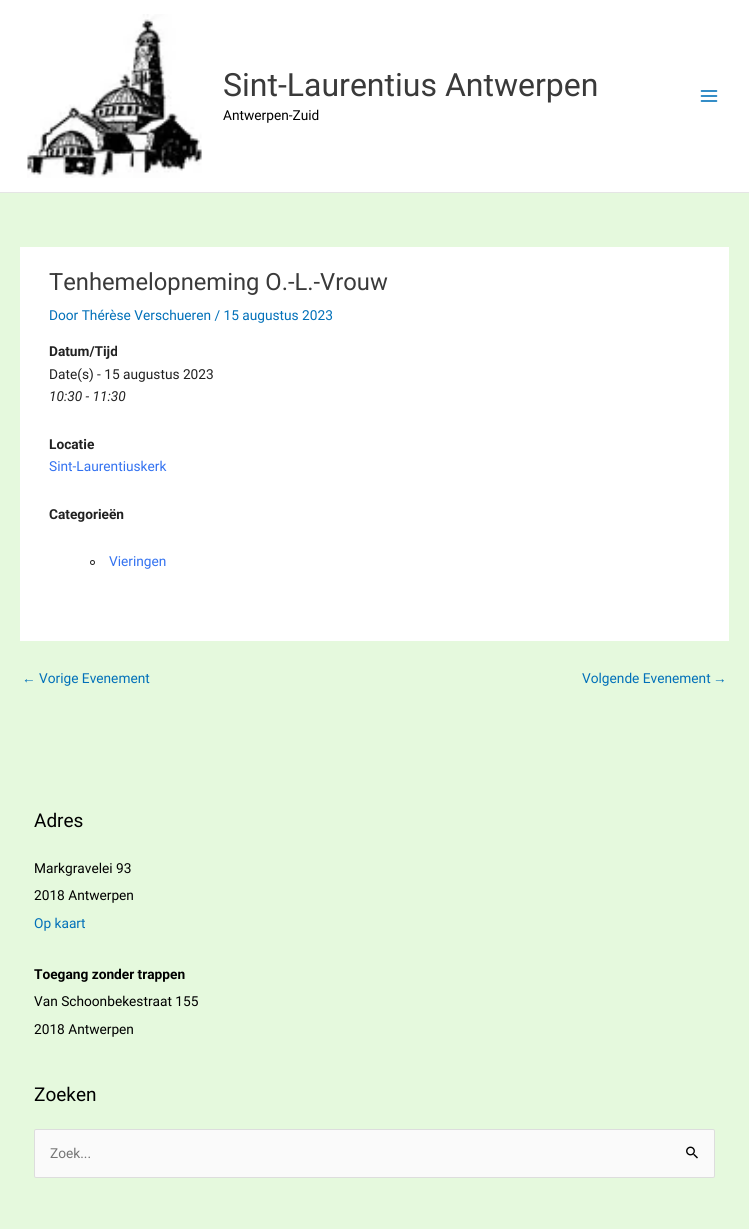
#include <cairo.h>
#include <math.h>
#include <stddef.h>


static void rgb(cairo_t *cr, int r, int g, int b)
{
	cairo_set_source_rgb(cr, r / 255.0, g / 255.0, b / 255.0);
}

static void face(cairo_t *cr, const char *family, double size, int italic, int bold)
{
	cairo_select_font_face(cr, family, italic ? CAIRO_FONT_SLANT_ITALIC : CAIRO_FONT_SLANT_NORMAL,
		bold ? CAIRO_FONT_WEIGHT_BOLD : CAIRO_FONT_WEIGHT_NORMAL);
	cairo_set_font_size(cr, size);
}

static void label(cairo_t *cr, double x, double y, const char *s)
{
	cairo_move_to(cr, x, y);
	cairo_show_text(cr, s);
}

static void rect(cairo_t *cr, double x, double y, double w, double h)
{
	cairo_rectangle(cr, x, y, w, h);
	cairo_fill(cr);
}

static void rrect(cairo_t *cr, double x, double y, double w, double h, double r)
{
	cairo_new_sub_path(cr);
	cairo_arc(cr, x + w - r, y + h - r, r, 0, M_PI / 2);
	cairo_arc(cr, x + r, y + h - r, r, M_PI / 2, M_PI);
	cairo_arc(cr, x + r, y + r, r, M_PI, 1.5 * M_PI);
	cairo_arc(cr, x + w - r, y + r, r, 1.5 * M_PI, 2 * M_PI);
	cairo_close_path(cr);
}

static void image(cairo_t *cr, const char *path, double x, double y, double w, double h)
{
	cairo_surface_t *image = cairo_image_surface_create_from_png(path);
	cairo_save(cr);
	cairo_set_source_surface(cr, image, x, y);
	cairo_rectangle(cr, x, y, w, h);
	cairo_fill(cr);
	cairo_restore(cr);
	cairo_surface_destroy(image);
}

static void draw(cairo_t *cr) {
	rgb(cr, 229, 249, 221);
	cairo_paint(cr);
	rgb(cr, 255, 255, 255);
	rect(cr, 0, 0, 749, 192);
	rgb(cr, 229, 229, 229);
	rect(cr, 0, 192, 749, 1);
	image(cr, "image0.png", 27, 14, 175, 164);
	face(cr, "Roboto", 32, 0, 0);
	rgb(cr, 58, 58, 58);
	label(cr, 223, 96, "Sint-Laurentius Antwerpen");
	face(cr, "Roboto", 13.7, 0, 0);
	rgb(cr, 0, 0, 0);
	label(cr, 223, 120, "Antwerpen-Zuid");
	image(cr, "image1.png", 700, 90, 18, 12);
	rgb(cr, 255, 255, 255);
	rect(cr, 20, 247, 709, 394);
	face(cr, "Roboto", 23.75, 0, 0);
	rgb(cr, 58, 58, 58);
	label(cr, 49, 290, "Tenhemelopneming O.-L.-Vrouw");
	face(cr, "Roboto", 13.7, 0, 0);
	rgb(cr, 1, 112, 185);
	label(cr, 49, 320, "Door Thérèse Verschueren / 15 augustus 2023");
	face(cr, "Roboto", 13.7, 0, 1);
	rgb(cr, 33, 33, 33);
	label(cr, 49, 356, "Datum/Tijd");
	face(cr, "Roboto", 13.7, 0, 0);
	label(cr, 49, 379, "Date(s) - 15 augustus 2023");
	face(cr, "Roboto", 13.7, 1, 0);
	label(cr, 49, 401, "10:30 - 11:30");
	face(cr, "Roboto", 13.7, 0, 1);
	label(cr, 49, 449, "Locatie");
	face(cr, "Roboto", 13.7, 0, 0);
	rgb(cr, 51, 114, 240);
	label(cr, 49, 471, "Sint-Laurentiuskerk");
	face(cr, "Roboto", 13.7, 0, 1);
	rgb(cr, 33, 33, 33);
	label(cr, 49, 519, "Categorieën");
	cairo_new_path(cr);
	cairo_arc(cr, 92.5, 562.5, 2, 0, 2 * M_PI);
	cairo_set_line_width(cr, 1);
	cairo_stroke(cr);
	face(cr, "Roboto", 13.7, 0, 0);
	rgb(cr, 51, 114, 240);
	label(cr, 109, 566, "Vieringen");
	face(cr, "Liberation Sans", 13.7, 0, 0);
	rgb(cr, 1, 112, 185);
	label(cr, 22, 683, "←");
	face(cr, "Roboto", 13.7, 0, 0);
	label(cr, 39, 683, "Vorige Evenement");
	label(cr, 582, 683, "Volgende Evenement");
	face(cr, "Liberation Sans", 13.7, 0, 0);
	label(cr, 713, 683, "→");
	face(cr, "Roboto", 19, 0, 0);
	rgb(cr, 0, 0, 0);
	label(cr, 34, 827, "Adres");
	face(cr, "Roboto", 13.7, 0, 0);
	label(cr, 34, 873, "Markgravelei 93");
	label(cr, 34, 900, "2018 Antwerpen");
	rgb(cr, 1, 112, 185);
	label(cr, 34, 928, "Op kaart");
	face(cr, "Roboto", 13.7, 0, 1);
	rgb(cr, 0, 0, 0);
	label(cr, 34, 979, "Toegang zonder trappen");
	face(cr, "Roboto", 13.7, 0, 0);
	label(cr, 34, 1006, "Van Schoonbekestraat 155");
	label(cr, 34, 1034, "2018 Antwerpen");
	face(cr, "Roboto", 19, 0, 0);
	label(cr, 34, 1101, "Zoeken");
	rgb(cr, 250, 250, 250);
	rrect(cr, 34.5, 1129.5, 680, 48, 1.5);
	cairo_fill_preserve(cr);
	rgb(cr, 221, 221, 221);
	cairo_stroke(cr);
	face(cr, "Roboto", 13.7, 0, 0);
	rgb(cr, 117, 117, 117);
	label(cr, 50, 1158, "Zoek...");
	image(cr, "image2.png", 686, 1146, 12, 13);
}

int main(void) {
	cairo_surface_t *surface = cairo_image_surface_create(CAIRO_FORMAT_RGB24, 749, 1229);
	cairo_t *cr = cairo_create(surface);
	cairo_font_options_t *options = cairo_font_options_create();
	cairo_font_options_set_hint_metrics(options, CAIRO_HINT_METRICS_OFF);
	cairo_font_options_set_hint_style(options, CAIRO_HINT_STYLE_NONE);
	cairo_set_font_options(cr, options);
	cairo_set_miter_limit(cr, 4);
	draw(cr);
	cairo_surface_write_to_png(surface, "render.png");
	cairo_font_options_destroy(options);
	cairo_destroy(cr);
	cairo_surface_destroy(surface);
	return 0;
}
